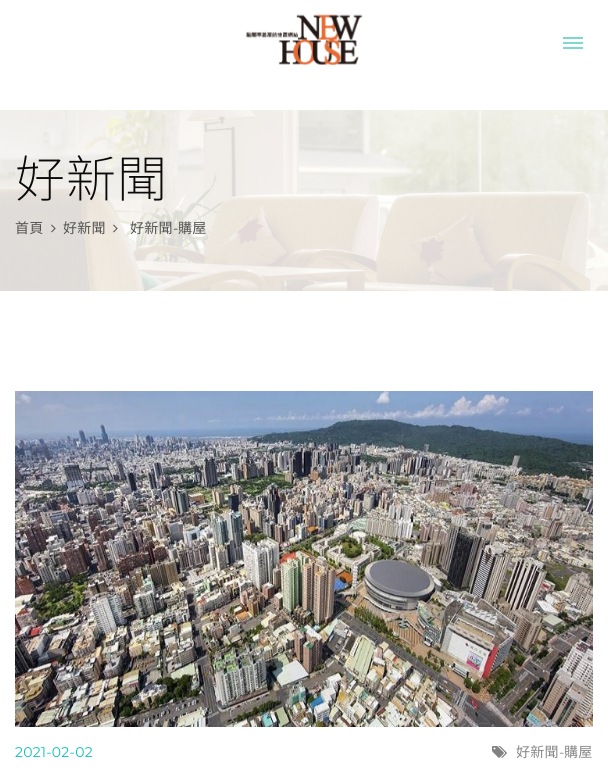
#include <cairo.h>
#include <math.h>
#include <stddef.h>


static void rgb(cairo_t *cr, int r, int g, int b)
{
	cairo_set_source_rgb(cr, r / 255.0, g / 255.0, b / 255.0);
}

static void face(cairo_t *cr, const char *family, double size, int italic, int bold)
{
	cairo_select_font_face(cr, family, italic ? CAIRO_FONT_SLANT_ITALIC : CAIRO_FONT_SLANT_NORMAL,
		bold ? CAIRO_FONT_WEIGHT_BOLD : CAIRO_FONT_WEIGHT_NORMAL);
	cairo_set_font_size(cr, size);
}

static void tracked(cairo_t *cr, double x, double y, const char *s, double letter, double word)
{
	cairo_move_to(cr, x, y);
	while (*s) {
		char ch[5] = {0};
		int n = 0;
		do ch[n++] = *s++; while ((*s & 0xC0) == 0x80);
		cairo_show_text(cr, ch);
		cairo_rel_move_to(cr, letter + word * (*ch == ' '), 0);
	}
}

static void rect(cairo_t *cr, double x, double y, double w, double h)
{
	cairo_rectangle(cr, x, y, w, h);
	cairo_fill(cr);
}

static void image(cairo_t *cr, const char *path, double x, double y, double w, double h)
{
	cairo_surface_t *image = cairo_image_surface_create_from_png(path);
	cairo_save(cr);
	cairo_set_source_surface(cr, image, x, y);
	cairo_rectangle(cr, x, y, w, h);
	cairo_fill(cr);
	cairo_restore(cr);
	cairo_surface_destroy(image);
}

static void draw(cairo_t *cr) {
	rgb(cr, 255, 255, 255);
	cairo_paint(cr);
	image(cr, "image0.png", 246, 14, 117, 51);
	rgb(cr, 125, 216, 207);
	rect(cr, 563, 37, 20, 2);
	rect(cr, 563, 42, 20, 2);
	rect(cr, 563, 47, 20, 2);
	image(cr, "image1.png", 0, 110, 608, 181);
	face(cr, "Noto Sans TC ExtraLight", 50, 0, 0);
	rgb(cr, 10, 10, 10);
	tracked(cr, 15, 197, "好新聞", 1, 0);
	face(cr, "Noto Sans TC", 14, 0, 0);
	rgb(cr, 85, 84, 82);
	tracked(cr, 15, 233, "首頁", 0.25, 0);
	image(cr, "image2.png", 51, 224, 5, 9);
	tracked(cr, 63, 233, "好新聞", 0.25, 0);
	image(cr, "image3.png", 113, 224, 5, 9);
	tracked(cr, 130, 233, "好新聞", 0.25, 0);
	face(cr, "Montserrat", 14, 0, 0);
	tracked(cr, 173, 233, "-", 0.25, 0);
	face(cr, "Noto Sans TC", 14, 0, 0);
	tracked(cr, 178, 233, "購屋", 0.25, 0);
	image(cr, "image4.png", 15, 391, 578, 336);
	face(cr, "Montserrat", 14, 0, 0);
	rgb(cr, 19, 191, 188);
	tracked(cr, 15, 757, "2021-02-02", 0.25, 0);
	image(cr, "image5.png", 492, 746, 15, 12);
	face(cr, "Noto Sans TC", 14, 0, 0);
	rgb(cr, 136, 136, 136);
	tracked(cr, 516, 757, "好新聞", 0.25, 0);
	face(cr, "Montserrat", 14, 0, 0);
	tracked(cr, 559, 757, "-", 0.25, 0);
	face(cr, "Noto Sans TC", 14, 0, 0);
	tracked(cr, 564, 757, "購屋", 0.25, 0);
}

int main(void) {
	cairo_surface_t *surface = cairo_image_surface_create(CAIRO_FORMAT_RGB24, 608, 774);
	cairo_t *cr = cairo_create(surface);
	cairo_font_options_t *options = cairo_font_options_create();
	cairo_font_options_set_hint_metrics(options, CAIRO_HINT_METRICS_OFF);
	cairo_font_options_set_hint_style(options, CAIRO_HINT_STYLE_NONE);
	cairo_set_font_options(cr, options);
	cairo_set_miter_limit(cr, 4);
	draw(cr);
	cairo_surface_write_to_png(surface, "render.png");
	cairo_font_options_destroy(options);
	cairo_destroy(cr);
	cairo_surface_destroy(surface);
	return 0;
}
